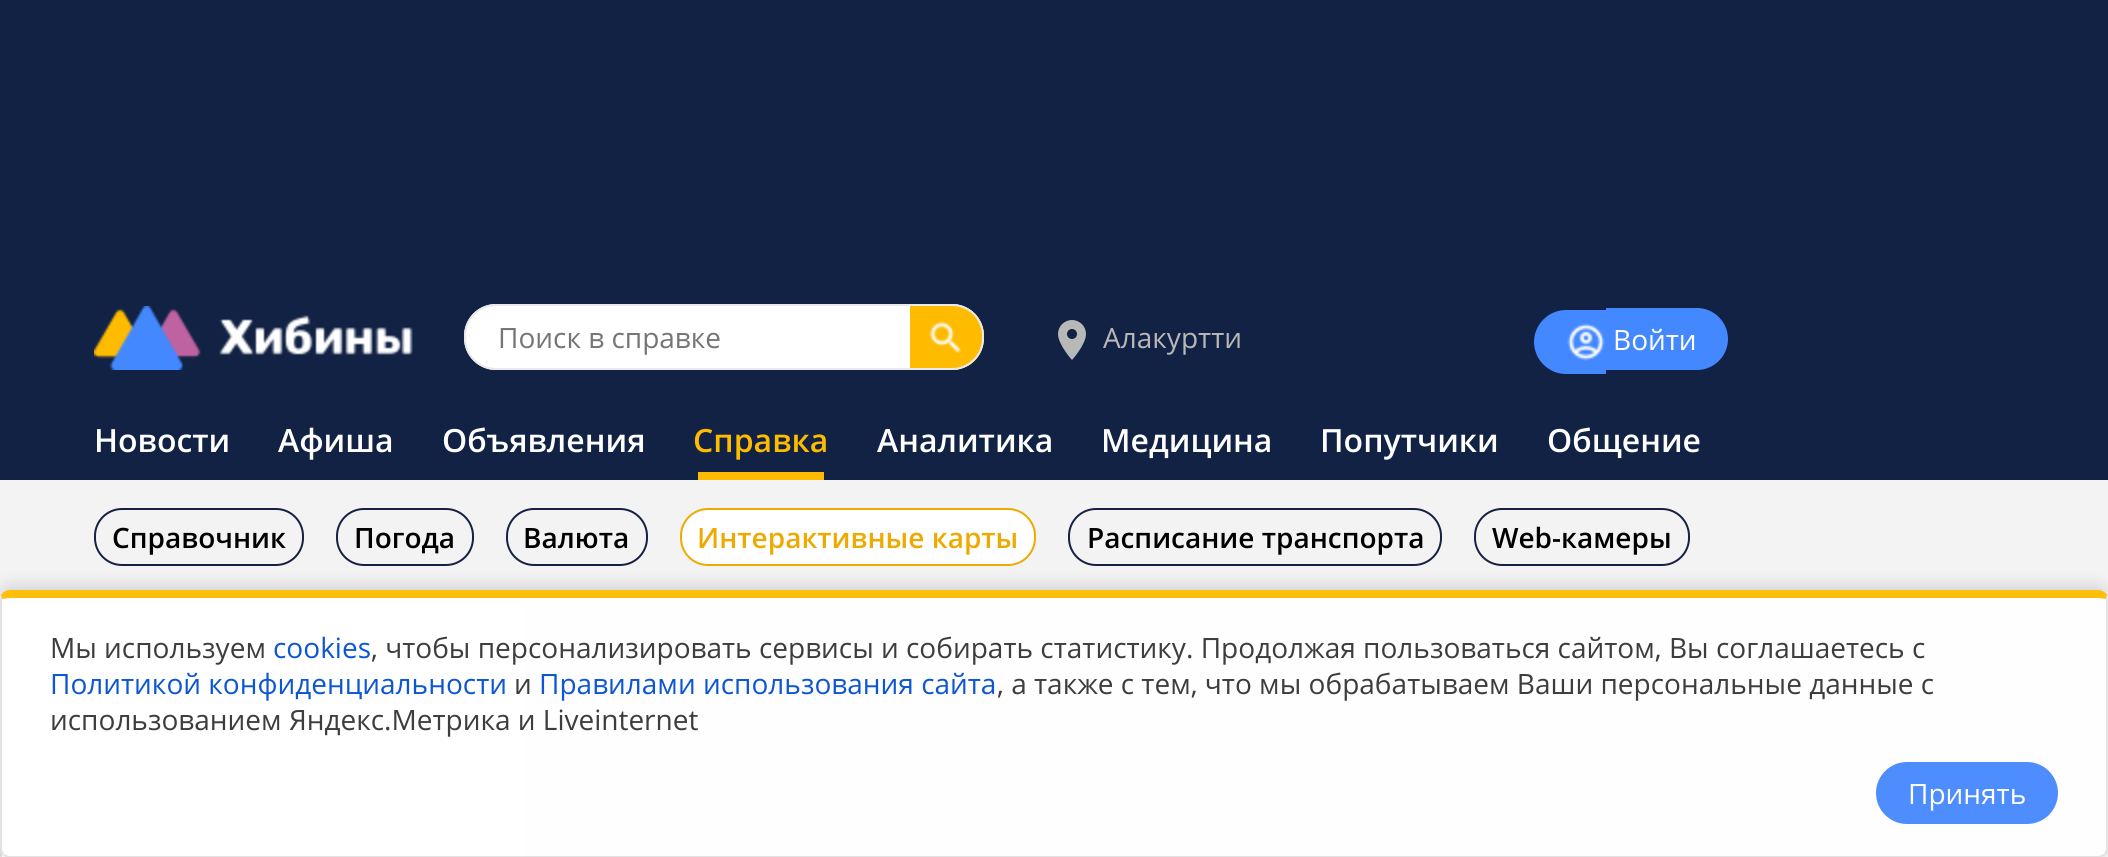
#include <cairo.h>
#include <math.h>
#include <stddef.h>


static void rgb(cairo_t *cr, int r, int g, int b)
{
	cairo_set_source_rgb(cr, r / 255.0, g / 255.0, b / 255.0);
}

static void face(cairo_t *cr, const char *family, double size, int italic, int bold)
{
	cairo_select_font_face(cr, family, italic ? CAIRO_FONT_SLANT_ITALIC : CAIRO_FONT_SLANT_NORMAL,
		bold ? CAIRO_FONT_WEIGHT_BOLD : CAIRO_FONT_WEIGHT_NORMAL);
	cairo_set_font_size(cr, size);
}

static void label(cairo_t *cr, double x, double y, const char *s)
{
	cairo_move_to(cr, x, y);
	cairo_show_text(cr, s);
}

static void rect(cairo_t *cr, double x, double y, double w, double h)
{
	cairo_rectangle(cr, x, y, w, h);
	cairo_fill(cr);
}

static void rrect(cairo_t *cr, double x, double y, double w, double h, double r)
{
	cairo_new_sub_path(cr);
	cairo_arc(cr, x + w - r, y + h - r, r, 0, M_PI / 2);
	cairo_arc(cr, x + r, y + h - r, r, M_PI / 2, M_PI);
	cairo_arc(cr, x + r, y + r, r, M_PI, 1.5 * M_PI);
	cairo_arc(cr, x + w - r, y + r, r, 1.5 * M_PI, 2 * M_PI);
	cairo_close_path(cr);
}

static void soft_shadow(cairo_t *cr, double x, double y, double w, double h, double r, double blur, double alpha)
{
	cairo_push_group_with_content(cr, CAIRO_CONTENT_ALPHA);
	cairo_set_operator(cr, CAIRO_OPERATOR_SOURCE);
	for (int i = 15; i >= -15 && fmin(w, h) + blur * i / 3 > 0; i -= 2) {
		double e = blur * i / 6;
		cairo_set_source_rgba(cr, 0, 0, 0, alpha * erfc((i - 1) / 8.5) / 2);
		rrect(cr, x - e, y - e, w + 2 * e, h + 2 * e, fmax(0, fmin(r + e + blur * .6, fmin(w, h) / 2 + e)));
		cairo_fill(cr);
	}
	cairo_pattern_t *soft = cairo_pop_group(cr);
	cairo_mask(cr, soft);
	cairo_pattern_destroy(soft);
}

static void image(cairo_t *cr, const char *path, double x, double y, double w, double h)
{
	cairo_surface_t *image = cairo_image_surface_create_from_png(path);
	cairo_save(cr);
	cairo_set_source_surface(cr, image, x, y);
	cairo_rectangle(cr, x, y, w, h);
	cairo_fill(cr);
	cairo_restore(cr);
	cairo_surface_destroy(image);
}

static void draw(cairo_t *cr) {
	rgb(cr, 243, 243, 243);
	cairo_paint(cr);
	rgb(cr, 17, 34, 68);
	rect(cr, 0, 0, 2108, 480);
	image(cr, "image0.png", 94, 306, 319, 64);
	rgb(cr, 255, 255, 255);
	rrect(cr, 464, 304, 520, 66, 32);
	cairo_fill(cr);
	image(cr, "image1.png", 910, 306, 72, 64);
	rrect(cr, 465, 305, 518, 64, 31);
	rgb(cr, 233, 233, 233);
	cairo_stroke(cr);
	face(cr, "Open Sans", 28, 0, 0);
	rgb(cr, 117, 117, 117);
	label(cr, 498, 348, "Поиск в справке");
	image(cr, "image2.png", 1058, 320, 28, 40);
	rgb(cr, 184, 184, 184);
	label(cr, 1103, 348, "Алакуртти");
	rgb(cr, 68, 136, 255);
	cairo_new_path(cr);
	cairo_move_to(cr, 1566, 310);
	cairo_line_to(cr, 1606, 310);
	cairo_line_to(cr, 1606, 374);
	cairo_line_to(cr, 1566, 374);
	cairo_curve_to(cr, 1548.5, 374, 1534, 359.5, 1534, 342);
	cairo_curve_to(cr, 1534, 324.5, 1548.5, 310, 1566, 310);
	cairo_close_path(cr);
	cairo_fill(cr);
	image(cr, "image3.png", 1567, 323, 38, 38);
	cairo_new_path(cr);
	cairo_move_to(cr, 1606, 308);
	cairo_line_to(cr, 1697, 308);
	cairo_curve_to(cr, 1714, 308, 1728, 322, 1728, 339);
	cairo_curve_to(cr, 1728, 356, 1714, 370, 1697, 370);
	cairo_line_to(cr, 1606, 370);
	cairo_close_path(cr);
	cairo_fill(cr);
	rgb(cr, 255, 255, 255);
	label(cr, 1613, 350, "Войти");
	face(cr, "Open Sans SemiBold", 32, 0, 0);
	label(cr, 94, 452, "Новости");
	label(cr, 278, 452, "Афиша");
	label(cr, 442, 452, "Объявления");
	rgb(cr, 255, 187, 0);
	label(cr, 693, 452, "Справка");
	rect(cr, 698, 472, 126, 8);
	rgb(cr, 255, 255, 255);
	label(cr, 877, 452, "Аналитика");
	label(cr, 1101, 452, "Медицина");
	label(cr, 1320, 452, "Попутчики");
	label(cr, 1547, 452, "Общение");
	rrect(cr, 95, 509, 208, 56, 27);
	rgb(cr, 23, 33, 68);
	cairo_stroke(cr);
	face(cr, "Open Sans SemiBold", 28, 0, 0);
	rgb(cr, 0, 0, 0);
	label(cr, 112, 548, "Справочник");
	rrect(cr, 337, 509, 136, 56, 27);
	rgb(cr, 23, 33, 68);
	cairo_stroke(cr);
	rgb(cr, 0, 0, 0);
	label(cr, 354, 548, "Погода");
	rrect(cr, 507, 509, 140, 56, 27);
	rgb(cr, 23, 33, 68);
	cairo_stroke(cr);
	rgb(cr, 0, 0, 0);
	label(cr, 523, 548, "Валюта");
	rgb(cr, 255, 255, 255);
	rrect(cr, 681, 509, 354, 56, 27);
	cairo_fill_preserve(cr);
	rgb(cr, 238, 170, 0);
	cairo_stroke(cr);
	label(cr, 697, 548, "Интерактивные карты");
	rrect(cr, 1069, 509, 372, 56, 27);
	rgb(cr, 23, 33, 68);
	cairo_stroke(cr);
	rgb(cr, 0, 0, 0);
	label(cr, 1087, 548, "Расписание транспорта");
	rrect(cr, 1475, 509, 214, 56, 27);
	rgb(cr, 23, 33, 68);
	cairo_stroke(cr);
	rgb(cr, 0, 0, 0);
	label(cr, 1492, 548, "Web-камеры");
	rgb(cr, 255, 255, 255);
	rrect(cr, 1, 601, 526, 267, 9);
	cairo_fill_preserve(cr);
	rgb(cr, 226, 226, 226);
	cairo_stroke(cr);
	cairo_save(cr);
	cairo_set_fill_rule(cr, CAIRO_FILL_RULE_EVEN_ODD);
	cairo_new_path(cr);
	cairo_move_to(cr, 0, 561);
	cairo_line_to(cr, 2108, 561);
	cairo_line_to(cr, 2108, 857);
	cairo_line_to(cr, 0, 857);
	cairo_close_path(cr);
	cairo_move_to(cr, 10, 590);
	cairo_line_to(cr, 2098, 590);
	cairo_curve_to(cr, 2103.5, 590, 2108, 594.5, 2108, 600);
	cairo_line_to(cr, 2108, 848);
	cairo_curve_to(cr, 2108, 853.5, 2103.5, 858, 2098, 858);
	cairo_line_to(cr, 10, 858);
	cairo_curve_to(cr, 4.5, 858, 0, 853.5, 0, 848);
	cairo_line_to(cr, 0, 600);
	cairo_curve_to(cr, 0, 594.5, 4.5, 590, 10, 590);
	cairo_close_path(cr);
	cairo_clip(cr);
	rgb(cr, 0, 0, 0);
	soft_shadow(cr, 0, 586, 2108, 268, 10, 8, 0.14);
	cairo_restore(cr);
	cairo_set_source_rgba(cr, 1, 1, 1, 0.95);
	cairo_new_path(cr);
	cairo_move_to(cr, 10, 598);
	cairo_line_to(cr, 2098, 598);
	cairo_curve_to(cr, 2102, 598, 2106, 599, 2106, 600);
	cairo_line_to(cr, 2106, 848);
	cairo_curve_to(cr, 2106, 852, 2102, 856, 2098, 856);
	cairo_line_to(cr, 10, 856);
	cairo_curve_to(cr, 6, 856, 2, 852, 2, 848);
	cairo_line_to(cr, 2, 600);
	cairo_curve_to(cr, 2, 599, 6, 598, 10, 598);
	cairo_close_path(cr);
	cairo_fill(cr);
	rgb(cr, 254, 190, 12);
	cairo_new_path(cr);
	cairo_move_to(cr, 10, 590);
	cairo_curve_to(cr, 6, 590, 3, 592, 1, 595);
	cairo_line_to(cr, 2, 599);
	cairo_curve_to(cr, 3, 599, 7, 598, 10, 598);
	cairo_line_to(cr, 2098, 598);
	cairo_curve_to(cr, 2101, 598, 2105, 599, 2106, 599);
	cairo_line_to(cr, 2107, 595);
	cairo_curve_to(cr, 2105, 592, 2102, 590, 2098, 590);
	cairo_close_path(cr);
	cairo_fill(cr);
	rgb(cr, 227, 227, 227);
	cairo_new_path(cr);
	cairo_move_to(cr, 2108, 848);
	cairo_line_to(cr, 2108, 600);
	cairo_line_to(cr, 2107, 595);
	cairo_line_to(cr, 2106, 599);
	cairo_line_to(cr, 2106, 600);
	cairo_line_to(cr, 2106, 848);
	cairo_curve_to(cr, 2106, 850, 2105, 852, 2104, 854);
	cairo_line_to(cr, 2105, 855);
	cairo_curve_to(cr, 2107, 854, 2108, 851, 2108, 848);
	cairo_close_path(cr);
	cairo_fill(cr);
	cairo_set_source_rgba(cr, 0.886, 0.886, 0.886, 0.95);
	cairo_new_path(cr);
	cairo_move_to(cr, 10, 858);
	cairo_line_to(cr, 2098, 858);
	cairo_curve_to(cr, 2101, 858, 2104, 857, 2105, 855);
	cairo_line_to(cr, 2104, 854);
	cairo_curve_to(cr, 2102, 855, 2100, 856, 2098, 856);
	cairo_line_to(cr, 10, 856);
	cairo_curve_to(cr, 8, 856, 6, 855, 4, 854);
	cairo_line_to(cr, 3, 855);
	cairo_curve_to(cr, 4, 857, 7, 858, 10, 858);
	cairo_close_path(cr);
	cairo_fill(cr);
	cairo_new_path(cr);
	cairo_move_to(cr, 0, 600);
	cairo_line_to(cr, 0, 848);
	cairo_curve_to(cr, 0, 851, 1, 854, 3, 855);
	cairo_line_to(cr, 4, 854);
	cairo_curve_to(cr, 3, 852, 2, 850, 2, 848);
	cairo_line_to(cr, 2, 600);
	cairo_line_to(cr, 2, 599);
	cairo_line_to(cr, 1, 595);
	cairo_close_path(cr);
	cairo_fill(cr);
	face(cr, "Open Sans", 28, 0, 0);
	rgb(cr, 61, 61, 61);
	label(cr, 50, 658, "Мы используем");
	rgb(cr, 13, 86, 211);
	label(cr, 273, 658, "cookies");
	rgb(cr, 61, 61, 61);
	label(cr, 371, 658, ", чтобы персонализировать сервисы и собирать статистику. Продолжая пользоваться сайтом, Вы соглашаетесь с");
	rgb(cr, 13, 86, 211);
	label(cr, 50, 694, "Политикой конфиденциальности");
	rgb(cr, 61, 61, 61);
	label(cr, 514, 694, "и");
	rgb(cr, 13, 86, 211);
	label(cr, 539, 694, "Правилами использования сайта");
	rgb(cr, 61, 61, 61);
	label(cr, 997, 694, ", а также с тем, что мы обрабатываем Ваши персональные данные с");
	label(cr, 50, 730, "использованием Яндекс.Метрика и Liveinternet");
	rgb(cr, 77, 141, 254);
	rrect(cr, 1876, 762, 182, 62, 31);
	cairo_fill(cr);
	rgb(cr, 255, 255, 255);
	label(cr, 1908, 804, "Принять");
}

int main(void) {
	cairo_surface_t *surface = cairo_image_surface_create(CAIRO_FORMAT_RGB24, 2108, 857);
	cairo_t *cr = cairo_create(surface);
	cairo_font_options_t *options = cairo_font_options_create();
	cairo_font_options_set_hint_metrics(options, CAIRO_HINT_METRICS_OFF);
	cairo_font_options_set_hint_style(options, CAIRO_HINT_STYLE_NONE);
	cairo_set_font_options(cr, options);
	cairo_set_miter_limit(cr, 4);
	draw(cr);
	cairo_surface_write_to_png(surface, "render.png");
	cairo_font_options_destroy(options);
	cairo_destroy(cr);
	cairo_surface_destroy(surface);
	return 0;
}
